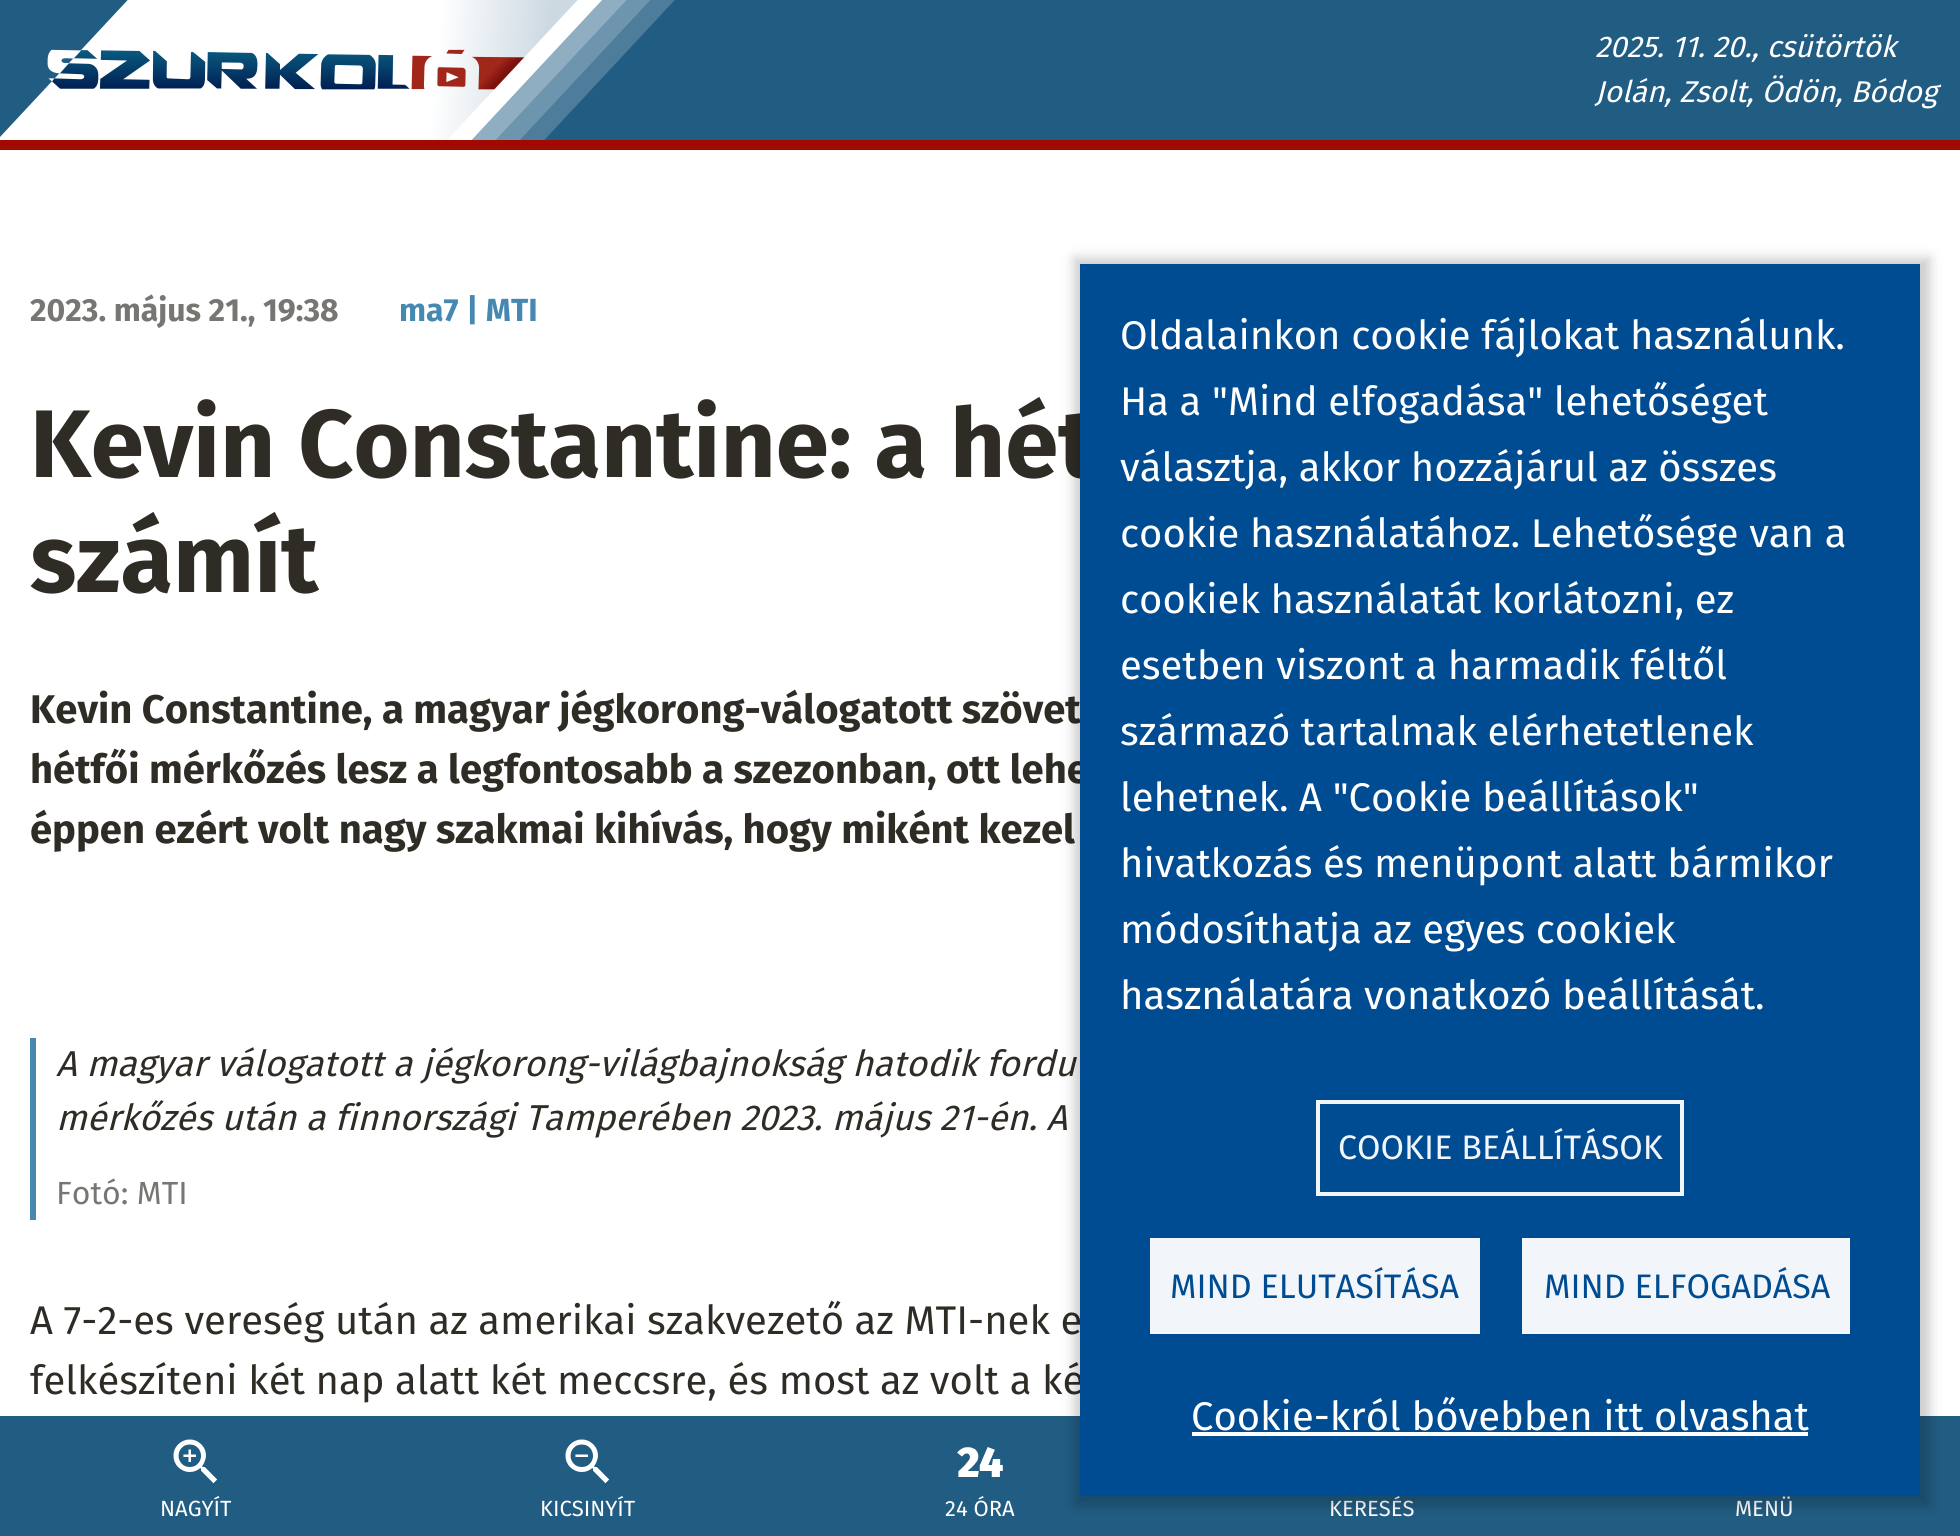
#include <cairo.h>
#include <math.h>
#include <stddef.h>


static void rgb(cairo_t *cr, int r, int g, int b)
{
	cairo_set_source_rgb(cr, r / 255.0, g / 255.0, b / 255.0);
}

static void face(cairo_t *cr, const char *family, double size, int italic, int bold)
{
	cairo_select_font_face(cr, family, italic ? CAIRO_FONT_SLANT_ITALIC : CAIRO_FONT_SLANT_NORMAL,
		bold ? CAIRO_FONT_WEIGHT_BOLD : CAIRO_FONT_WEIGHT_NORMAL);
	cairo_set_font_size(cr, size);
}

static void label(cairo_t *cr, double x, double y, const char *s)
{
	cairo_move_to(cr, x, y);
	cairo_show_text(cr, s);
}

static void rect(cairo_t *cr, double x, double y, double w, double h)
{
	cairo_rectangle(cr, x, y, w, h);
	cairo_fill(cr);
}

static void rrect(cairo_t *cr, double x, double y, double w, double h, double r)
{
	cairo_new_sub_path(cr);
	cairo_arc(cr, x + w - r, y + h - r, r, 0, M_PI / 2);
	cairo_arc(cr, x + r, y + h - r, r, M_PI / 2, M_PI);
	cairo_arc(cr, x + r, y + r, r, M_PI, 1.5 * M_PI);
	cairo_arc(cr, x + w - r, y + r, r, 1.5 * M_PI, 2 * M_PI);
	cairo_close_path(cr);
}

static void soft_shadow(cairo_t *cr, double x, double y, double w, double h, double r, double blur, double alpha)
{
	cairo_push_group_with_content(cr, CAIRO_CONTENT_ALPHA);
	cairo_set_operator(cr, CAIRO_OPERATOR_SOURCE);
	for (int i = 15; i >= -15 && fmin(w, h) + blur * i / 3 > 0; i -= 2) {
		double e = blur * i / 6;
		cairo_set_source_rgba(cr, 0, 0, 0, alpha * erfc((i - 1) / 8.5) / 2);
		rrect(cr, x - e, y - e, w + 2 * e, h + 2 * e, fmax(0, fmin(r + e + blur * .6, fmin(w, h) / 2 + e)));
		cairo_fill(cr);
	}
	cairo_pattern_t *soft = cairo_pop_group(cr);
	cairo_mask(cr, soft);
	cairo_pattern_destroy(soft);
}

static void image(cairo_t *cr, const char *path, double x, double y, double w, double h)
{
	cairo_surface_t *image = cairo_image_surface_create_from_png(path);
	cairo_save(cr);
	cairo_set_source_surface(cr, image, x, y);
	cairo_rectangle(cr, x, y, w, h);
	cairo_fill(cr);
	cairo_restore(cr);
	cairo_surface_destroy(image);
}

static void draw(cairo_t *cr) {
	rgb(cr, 255, 255, 255);
	cairo_paint(cr);
	rgb(cr, 33, 92, 130);
	rect(cr, 0, 0, 1960, 140);
	image(cr, "image0.png", 0, 0, 675, 140);
	face(cr, "Fira Sans", 30, 1, 0);
	rgb(cr, 255, 255, 255);
	label(cr, 1595, 57, "2025. 11. 20., csütörtök");
	label(cr, 1595, 102, "Jolán, Zsolt, Ödön, Bódog");
	rgb(cr, 160, 10, 0);
	rect(cr, 0, 140, 1960, 10);
	rgb(cr, 33, 92, 130);
	rect(cr, 0, 1416, 1960, 120);
	image(cr, "image1.png", 173, 1439, 45, 45);
	face(cr, "Fira Sans", 22, 0, 0);
	rgb(cr, 255, 255, 255);
	label(cr, 160, 1516, "NAGYÍT");
	image(cr, "image2.png", 565, 1439, 45, 45);
	label(cr, 540, 1516, "KICSINYÍT");
	image(cr, "image3.png", 957, 1447, 46, 30);
	label(cr, 945, 1516, "24 ÓRA");
	label(cr, 1329, 1516, "KERESÉS");
	label(cr, 1735, 1516, "MENÜ");
	face(cr, "Fira Sans", 32, 0, 1);
	rgb(cr, 120, 118, 115);
	label(cr, 30, 321, "2023. május 21., 19:38");
	rgb(cr, 69, 136, 178);
	label(cr, 399, 321, "ma7 | MTI");
	face(cr, "Fira Sans", 96, 0, 1);
	rgb(cr, 47, 44, 38);
	label(cr, 30, 477, "Kevin Constantine: a hét");
	label(cr, 30, 592, "számít");
	face(cr, "Fira Sans", 40, 0, 1);
	label(cr, 30, 723, "Kevin Constantine, a magyar jégkorong-válogatott szövet");
	label(cr, 30, 783, "hétfői mérkőzés lesz a legfontosabb a szezonban, ott lehe");
	label(cr, 30, 843, "éppen ezért volt nagy szakmai kihívás, hogy miként kezel");
	rgb(cr, 69, 136, 178);
	rect(cr, 30, 1038, 6, 182);
	face(cr, "Fira Sans", 36, 1, 0);
	rgb(cr, 47, 44, 38);
	label(cr, 56, 1076, "A magyar válogatott a jégkorong-világbajnokság hatodik fordu");
	label(cr, 56, 1130, "mérkőzés után a finnországi Tamperében 2023. május 21-én. A");
	face(cr, "Fira Sans", 32, 0, 0);
	rgb(cr, 120, 118, 115);
	label(cr, 56, 1204, "Fotó: MTI");
	face(cr, "Fira Sans", 40, 0, 0);
	rgb(cr, 47, 44, 38);
	label(cr, 30, 1334, "A 7-2-es vereség után az amerikai szakvezető az MTI-nek e");
	label(cr, 30, 1394, "felkészíteni két nap alatt két meccsre, és most az volt a ké");
	rgb(cr, 0, 0, 0);
	soft_shadow(cr, 1074, 258, 856, 1248, 0, 6, 0.2);
	rgb(cr, 0, 76, 147);
	rect(cr, 1080, 264, 840, 1232);
	rgb(cr, 255, 255, 255);
	label(cr, 1120, 349, "Oldalainkon cookie fájlokat használunk.");
	label(cr, 1120, 415, "Ha a \"Mind elfogadása\" lehetőséget");
	label(cr, 1120, 481, "választja, akkor hozzájárul az összes");
	label(cr, 1120, 547, "cookie használatához. Lehetősége van a");
	label(cr, 1120, 613, "cookiek használatát korlátozni, ez");
	label(cr, 1120, 679, "esetben viszont a harmadik féltől");
	label(cr, 1120, 745, "származó tartalmak elérhetetlenek");
	label(cr, 1120, 811, "lehetnek. A \"Cookie beállítások\"");
	label(cr, 1120, 877, "hivatkozás és menüpont alatt bármikor");
	label(cr, 1120, 943, "módosíthatja az egyes cookiek");
	label(cr, 1120, 1009, "használatára vonatkozó beállítását.");
	cairo_rectangle(cr, 1318, 1102, 364, 92);
	rgb(cr, 242, 246, 250);
	cairo_set_line_width(cr, 4);
	cairo_stroke(cr);
	face(cr, "Fira Sans", 34, 0, 0);
	label(cr, 1338, 1159, "COOKIE BEÁLLÍTÁSOK");
	rect(cr, 1150, 1238, 330, 96);
	rgb(cr, 0, 76, 147);
	label(cr, 1170, 1298, "MIND ELUTASÍTÁSA");
	rgb(cr, 242, 246, 250);
	rect(cr, 1522, 1238, 328, 96);
	rgb(cr, 0, 76, 147);
	label(cr, 1544, 1298, "MIND ELFOGADÁSA");
	face(cr, "Fira Sans", 40, 0, 0);
	rgb(cr, 255, 255, 255);
	label(cr, 1191, 1430, "Cookie-król bővebben itt olvashat");
	rect(cr, 1192, 1432, 616, 4);
}

int main(void) {
	cairo_surface_t *surface = cairo_image_surface_create(CAIRO_FORMAT_RGB24, 1960, 1536);
	cairo_t *cr = cairo_create(surface);
	cairo_font_options_t *options = cairo_font_options_create();
	cairo_font_options_set_hint_metrics(options, CAIRO_HINT_METRICS_OFF);
	cairo_font_options_set_hint_style(options, CAIRO_HINT_STYLE_NONE);
	cairo_set_font_options(cr, options);
	cairo_set_miter_limit(cr, 4);
	draw(cr);
	cairo_surface_write_to_png(surface, "render.png");
	cairo_font_options_destroy(options);
	cairo_destroy(cr);
	cairo_surface_destroy(surface);
	return 0;
}
